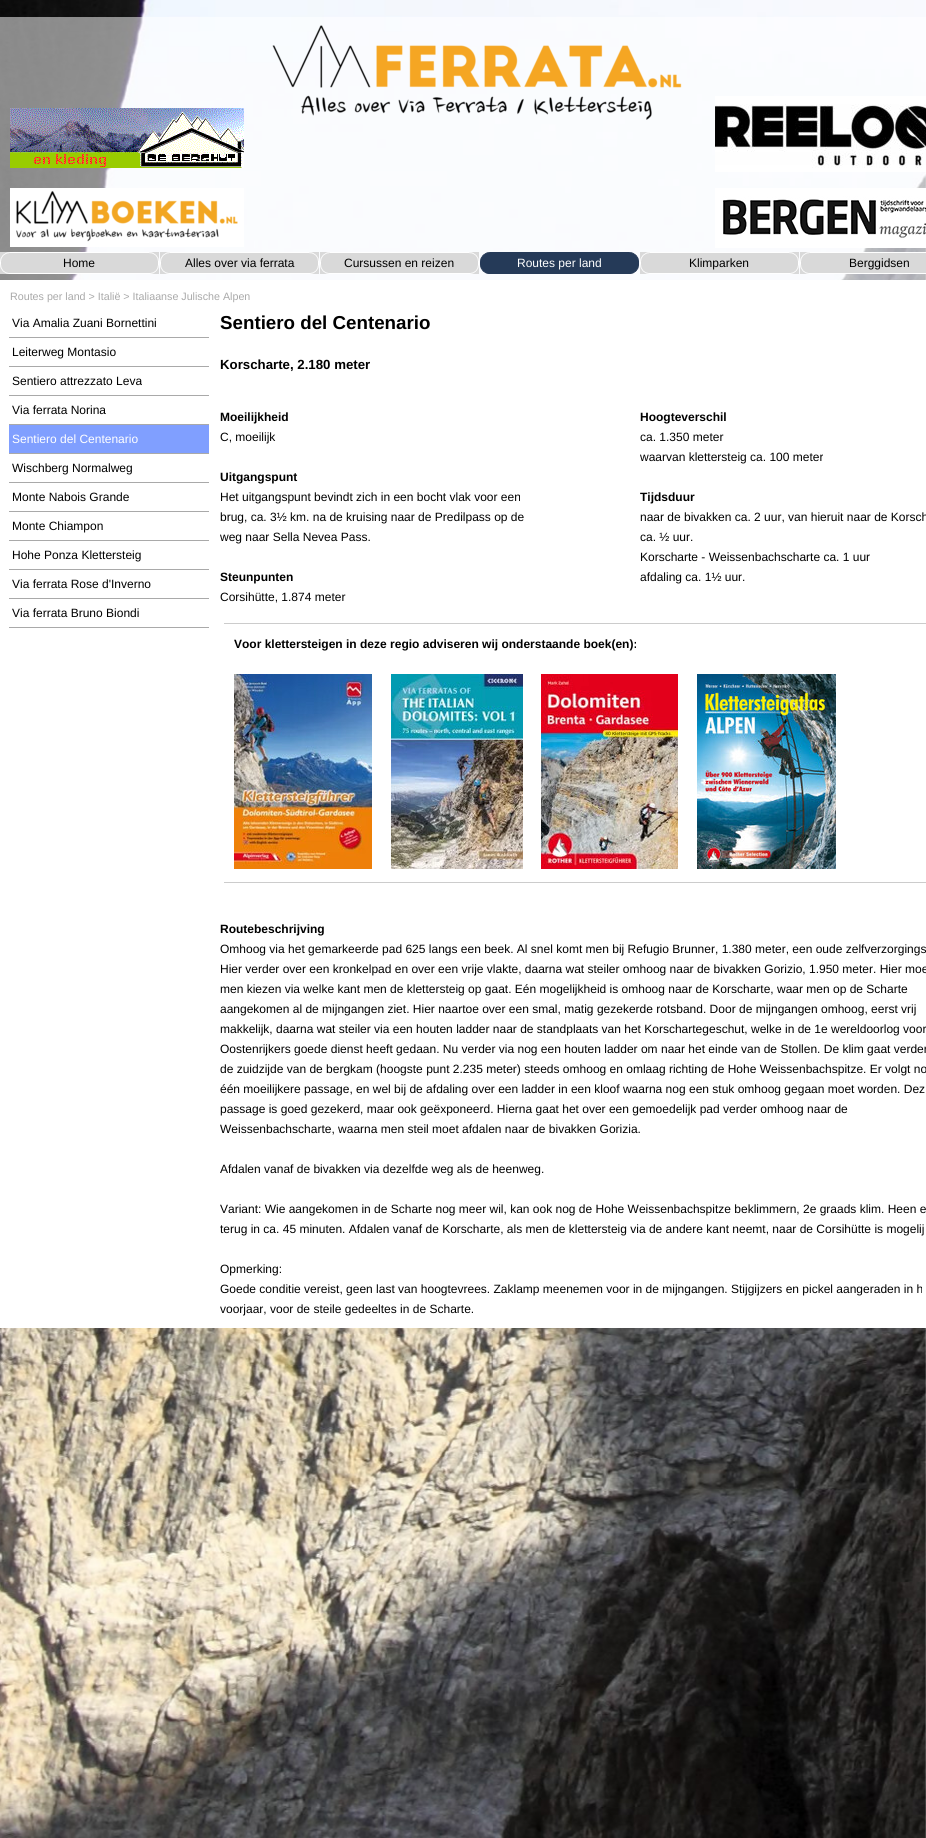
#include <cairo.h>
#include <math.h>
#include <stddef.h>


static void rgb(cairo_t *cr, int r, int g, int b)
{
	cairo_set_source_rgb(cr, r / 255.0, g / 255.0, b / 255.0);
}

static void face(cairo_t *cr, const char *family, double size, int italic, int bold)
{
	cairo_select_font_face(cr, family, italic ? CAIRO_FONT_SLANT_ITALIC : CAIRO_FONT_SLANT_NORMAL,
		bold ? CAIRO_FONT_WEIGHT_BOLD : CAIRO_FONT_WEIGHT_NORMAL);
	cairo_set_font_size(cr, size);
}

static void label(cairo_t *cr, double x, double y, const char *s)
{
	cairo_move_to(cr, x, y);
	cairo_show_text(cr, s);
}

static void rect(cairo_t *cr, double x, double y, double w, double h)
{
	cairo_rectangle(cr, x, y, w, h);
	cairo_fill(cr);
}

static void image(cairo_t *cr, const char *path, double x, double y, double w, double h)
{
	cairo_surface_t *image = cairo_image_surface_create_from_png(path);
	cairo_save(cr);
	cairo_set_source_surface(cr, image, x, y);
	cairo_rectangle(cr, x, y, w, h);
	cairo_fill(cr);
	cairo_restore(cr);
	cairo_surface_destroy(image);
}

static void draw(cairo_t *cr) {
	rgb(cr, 255, 255, 255);
	cairo_paint(cr);
	image(cr, "image0.png", 0, 0, 926, 1838);
	cairo_set_source_rgba(cr, 1, 1, 1, 0.52);
	rect(cr, 0, 17, 926, 263);
	image(cr, "image1.png", 272, 25, 410, 95);
	image(cr, "image2.png", 10, 108, 234, 60);
	image(cr, "image3.png", 715, 96, 211, 76);
	image(cr, "image4.png", 10, 188, 234, 59);
	image(cr, "image5.png", 715, 188, 211, 60);
	rgb(cr, 217, 217, 217);
	rect(cr, 0, 252, 159, 22);
	image(cr, "image6.png", 0, 252, 159, 22);
	face(cr, "Liberation Sans", 12, 0, 0);
	rgb(cr, 0, 0, 0);
	label(cr, 63, 267, "Home");
	rgb(cr, 217, 217, 217);
	rect(cr, 160, 252, 159, 22);
	image(cr, "image6.png", 160, 252, 159, 22);
	rgb(cr, 0, 0, 0);
	label(cr, 185, 267, "Alles over via ferrata");
	rgb(cr, 217, 217, 217);
	rect(cr, 320, 252, 159, 22);
	image(cr, "image6.png", 320, 252, 159, 22);
	rgb(cr, 0, 0, 0);
	label(cr, 344, 267, "Cursussen en reizen");
	image(cr, "image7.png", 480, 252, 159, 22);
	rgb(cr, 255, 255, 255);
	label(cr, 517, 267, "Routes per land");
	rgb(cr, 217, 217, 217);
	rect(cr, 640, 252, 159, 22);
	image(cr, "image6.png", 640, 252, 159, 22);
	rgb(cr, 0, 0, 0);
	label(cr, 689, 267, "Klimparken");
	rgb(cr, 217, 217, 217);
	rect(cr, 800, 252, 126, 22);
	image(cr, "image8.png", 800, 252, 126, 22);
	rgb(cr, 0, 0, 0);
	label(cr, 849, 267, "Berggidsen");
	rgb(cr, 255, 255, 255);
	rect(cr, 0, 280, 926, 1048);
	face(cr, "Liberation Sans", 10.7, 0, 0);
	rgb(cr, 169, 169, 169);
	label(cr, 10, 300, "Routes per land > Italië > Italiaanse Julische Alpen");
	rect(cr, 9, 337, 200, 1);
	face(cr, "Liberation Sans", 12, 0, 0);
	rgb(cr, 0, 0, 0);
	label(cr, 12, 327, "Via Amalia Zuani Bornettini");
	rgb(cr, 169, 169, 169);
	rect(cr, 9, 366, 200, 1);
	rgb(cr, 0, 0, 0);
	label(cr, 12, 356, "Leiterweg Montasio");
	rgb(cr, 169, 169, 169);
	rect(cr, 9, 395, 200, 1);
	rgb(cr, 0, 0, 0);
	label(cr, 12, 385, "Sentiero attrezzato Leva");
	rgb(cr, 169, 169, 169);
	rect(cr, 9, 424, 200, 1);
	rgb(cr, 0, 0, 0);
	label(cr, 12, 414, "Via ferrata Norina");
	rgb(cr, 128, 159, 255);
	rect(cr, 9, 425, 200, 28);
	rgb(cr, 169, 169, 169);
	rect(cr, 9, 453, 200, 1);
	rgb(cr, 255, 255, 255);
	label(cr, 12, 443, "Sentiero del Centenario");
	rgb(cr, 169, 169, 169);
	rect(cr, 9, 482, 200, 1);
	rgb(cr, 0, 0, 0);
	label(cr, 12, 472, "Wischberg Normalweg");
	rgb(cr, 169, 169, 169);
	rect(cr, 9, 511, 200, 1);
	rgb(cr, 0, 0, 0);
	label(cr, 12, 501, "Monte Nabois Grande");
	rgb(cr, 169, 169, 169);
	rect(cr, 9, 540, 200, 1);
	rgb(cr, 0, 0, 0);
	label(cr, 12, 530, "Monte Chiampon");
	rgb(cr, 169, 169, 169);
	rect(cr, 9, 569, 200, 1);
	rgb(cr, 0, 0, 0);
	label(cr, 12, 559, "Hohe Ponza Klettersteig");
	rgb(cr, 169, 169, 169);
	rect(cr, 9, 598, 200, 1);
	rgb(cr, 0, 0, 0);
	label(cr, 12, 588, "Via ferrata Rose d'Inverno");
	rgb(cr, 169, 169, 169);
	rect(cr, 9, 627, 200, 1);
	rgb(cr, 0, 0, 0);
	label(cr, 12, 617, "Via ferrata Bruno Biondi");
	face(cr, "Liberation Sans", 18.75, 0, 1);
	label(cr, 220, 329, "Sentiero del Centenario");
	face(cr, "Liberation Sans", 13.25, 0, 1);
	label(cr, 220, 369, "Korscharte, 2.180 meter");
	face(cr, "Liberation Sans", 12, 0, 1);
	label(cr, 220, 421, "Moeilijkheid");
	face(cr, "Liberation Sans", 12, 0, 0);
	label(cr, 220, 441, "C, moeilijk");
	face(cr, "Liberation Sans", 12, 0, 1);
	label(cr, 220, 481, "Uitgangspunt");
	face(cr, "Liberation Sans", 12, 0, 0);
	label(cr, 220, 501, "Het uitgangspunt bevindt zich in een bocht vlak voor een");
	label(cr, 220, 521, "brug, ca. 3½ km. na de kruising naar de Predilpass op de");
	label(cr, 220, 541, "weg naar Sella Nevea Pass.");
	face(cr, "Liberation Sans", 12, 0, 1);
	label(cr, 220, 581, "Steunpunten");
	face(cr, "Liberation Sans", 12, 0, 0);
	label(cr, 220, 601, "Corsihütte, 1.874 meter");
	face(cr, "Liberation Sans", 12, 0, 1);
	label(cr, 640, 421, "Hoogteverschil");
	face(cr, "Liberation Sans", 12, 0, 0);
	label(cr, 640, 441, "ca. 1.350 meter");
	label(cr, 640, 461, "waarvan klettersteig ca. 100 meter");
	face(cr, "Liberation Sans", 12, 0, 1);
	label(cr, 640, 501, "Tijdsduur");
	face(cr, "Liberation Sans", 12, 0, 0);
	label(cr, 640, 521, "naar de bivakken ca. 2 uur, van hieruit naar de Korsch");
	label(cr, 640, 541, "ca. ½ uur.");
	label(cr, 640, 561, "Korscharte - Weissenbachscharte ca. 1 uur");
	label(cr, 640, 581, "afdaling ca. 1½ uur.");
	rgb(cr, 204, 204, 204);
	rect(cr, 224, 623, 702, 1);
	rect(cr, 224, 882, 702, 1);
	face(cr, "Liberation Sans", 12, 0, 1);
	rgb(cr, 0, 0, 0);
	label(cr, 234, 648, "Voor klettersteigen in deze regio adviseren wij onderstaande boek(en):");
	image(cr, "image9.png", 234, 674, 138, 195);
	image(cr, "image10.png", 391, 674, 132, 195);
	image(cr, "image11.png", 541, 674, 137, 195);
	image(cr, "image12.png", 697, 674, 139, 195);
	label(cr, 220, 933, "Routebeschrijving");
	face(cr, "Liberation Sans", 12, 0, 0);
	label(cr, 220, 953, "Omhoog via het gemarkeerde pad 625 langs een beek. Al snel komt men bij Refugio Brunner, 1.380 meter, een oude zelfverzorgings");
	label(cr, 220, 973, "Hier verder over een kronkelpad en over een vrije vlakte, daarna wat steiler omhoog naar de bivakken Gorizio, 1.950 meter. Hier moe");
	label(cr, 220, 993, "men kiezen via welke kant men de klettersteig op gaat. Eén mogelijkheid is omhoog naar de Korscharte, waar men op de Scharte");
	label(cr, 220, 1013, "aangekomen al de mijngangen ziet. Hier naartoe over een smal, matig gezekerde rotsband. Door de mijngangen omhoog, eerst vrij");
	label(cr, 220, 1033, "makkelijk, daarna wat steiler via een houten ladder naar de standplaats van het Korschartegeschut, welke in de 1e wereldoorlog voor");
	label(cr, 220, 1053, "Oostenrijkers goede dienst heeft gedaan. Nu verder via nog een houten ladder om naar het einde van de Stollen. De klim gaat verder");
	label(cr, 220, 1073, "de zuidzijde van de bergkam (hoogste punt 2.235 meter) steeds omhoog en omlaag richting de Hohe Weissenbachspitze. Er volgt no");
	label(cr, 220, 1093, "één moeilijkere passage, en wel bij de afdaling over een ladder in een kloof waarna nog een stuk omhoog gegaan moet worden. Dez");
	label(cr, 220, 1113, "passage is goed gezekerd, maar ook geëxponeerd. Hierna gaat het over een gemoedelijk pad verder omhoog naar de");
	label(cr, 220, 1133, "Weissenbachscharte, waarna men steil moet afdalen naar de bivakken Gorizia.");
	label(cr, 220, 1173, "Afdalen vanaf de bivakken via dezelfde weg als de heenweg.");
	label(cr, 220, 1213, "Variant: Wie aangekomen in de Scharte nog meer wil, kan ook nog de Hohe Weissenbachspitze beklimmern, 2e graads klim. Heen e");
	label(cr, 220, 1233, "terug in ca. 45 minuten. Afdalen vanaf de Korscharte, als men de klettersteig via de andere kant neemt, naar de Corsihütte is mogelij");
	label(cr, 220, 1273, "Opmerking:");
	label(cr, 220, 1293, "Goede conditie vereist, geen last van hoogtevrees. Zaklamp meenemen voor in de mijngangen. Stijgijzers en pickel aangeraden in h");
	label(cr, 220, 1313, "voorjaar, voor de steile gedeeltes in de Scharte.");
}

int main(void) {
	cairo_surface_t *surface = cairo_image_surface_create(CAIRO_FORMAT_RGB24, 926, 1838);
	cairo_t *cr = cairo_create(surface);
	cairo_font_options_t *options = cairo_font_options_create();
	cairo_font_options_set_hint_metrics(options, CAIRO_HINT_METRICS_OFF);
	cairo_font_options_set_hint_style(options, CAIRO_HINT_STYLE_NONE);
	cairo_set_font_options(cr, options);
	cairo_set_miter_limit(cr, 4);
	draw(cr);
	cairo_surface_write_to_png(surface, "render.png");
	cairo_font_options_destroy(options);
	cairo_destroy(cr);
	cairo_surface_destroy(surface);
	return 0;
}
